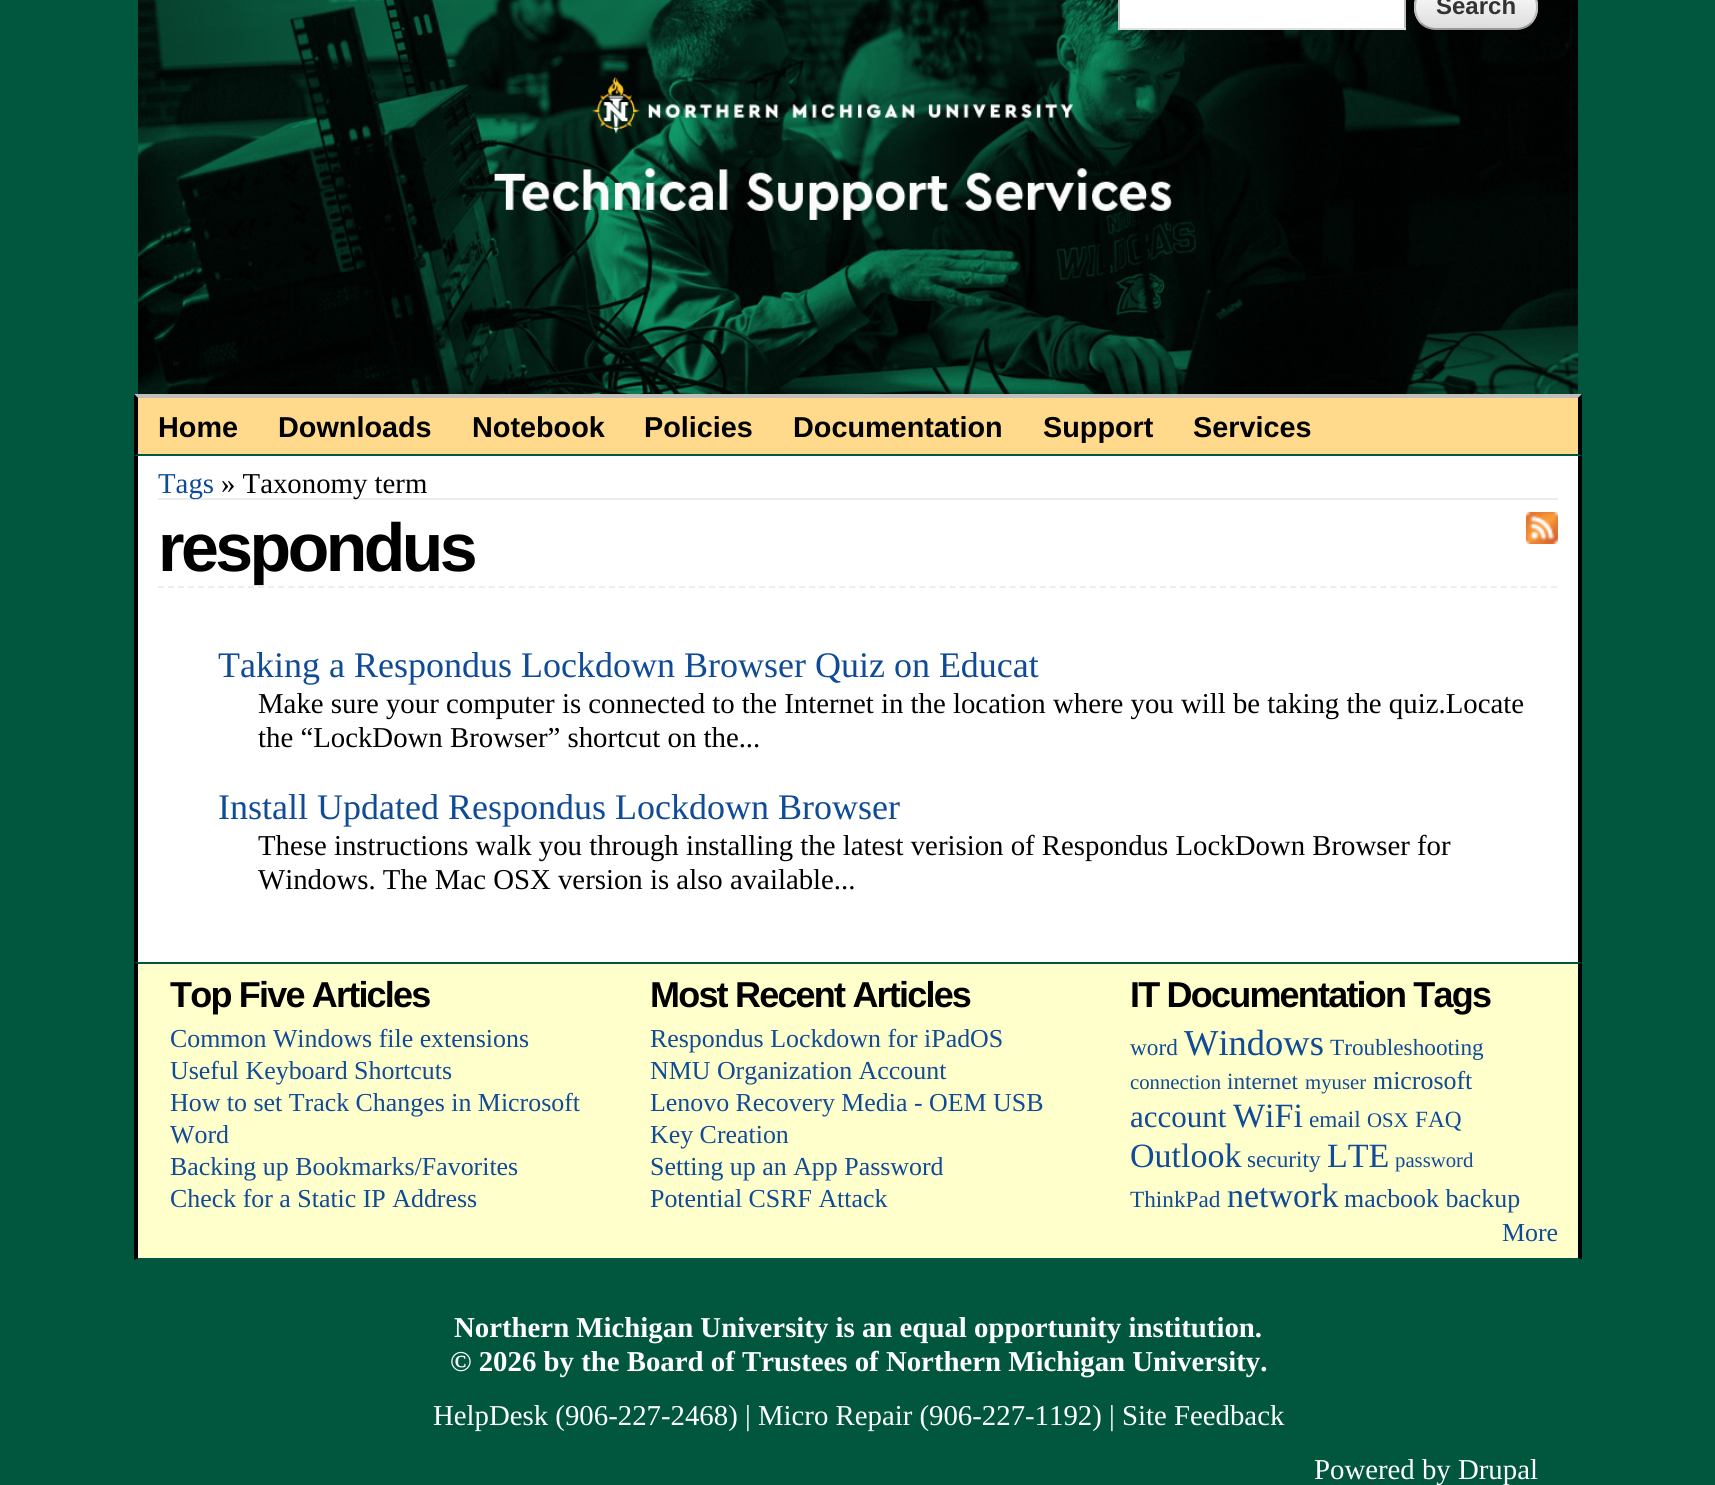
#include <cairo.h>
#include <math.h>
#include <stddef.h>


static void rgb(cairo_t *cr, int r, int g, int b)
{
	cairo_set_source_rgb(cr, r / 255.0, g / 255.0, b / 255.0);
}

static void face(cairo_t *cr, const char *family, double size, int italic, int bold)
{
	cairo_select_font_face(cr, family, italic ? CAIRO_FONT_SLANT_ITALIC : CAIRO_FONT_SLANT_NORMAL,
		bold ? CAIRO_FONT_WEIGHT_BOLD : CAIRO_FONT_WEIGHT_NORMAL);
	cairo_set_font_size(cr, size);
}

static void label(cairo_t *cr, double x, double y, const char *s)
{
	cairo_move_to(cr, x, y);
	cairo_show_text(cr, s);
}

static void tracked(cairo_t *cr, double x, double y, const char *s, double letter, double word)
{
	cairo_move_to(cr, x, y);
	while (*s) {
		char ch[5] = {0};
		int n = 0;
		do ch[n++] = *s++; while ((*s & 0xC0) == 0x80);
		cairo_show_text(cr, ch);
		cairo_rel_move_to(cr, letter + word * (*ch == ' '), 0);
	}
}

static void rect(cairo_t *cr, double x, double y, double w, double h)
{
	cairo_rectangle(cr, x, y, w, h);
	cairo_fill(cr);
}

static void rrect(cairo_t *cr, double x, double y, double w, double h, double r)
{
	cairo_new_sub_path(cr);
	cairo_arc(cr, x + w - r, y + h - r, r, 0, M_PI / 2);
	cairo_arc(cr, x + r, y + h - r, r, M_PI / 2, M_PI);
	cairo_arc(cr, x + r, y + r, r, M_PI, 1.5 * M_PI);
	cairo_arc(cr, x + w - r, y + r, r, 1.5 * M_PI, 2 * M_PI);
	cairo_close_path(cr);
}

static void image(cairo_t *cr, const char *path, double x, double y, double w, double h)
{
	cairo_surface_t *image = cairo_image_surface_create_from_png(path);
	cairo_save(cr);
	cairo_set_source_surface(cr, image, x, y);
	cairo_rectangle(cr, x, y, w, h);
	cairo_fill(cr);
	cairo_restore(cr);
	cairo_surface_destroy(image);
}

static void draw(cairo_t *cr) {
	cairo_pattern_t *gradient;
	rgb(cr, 0, 87, 61);
	cairo_paint(cr);
	image(cr, "image0.png", 138, 0, 1440, 394);
	rgb(cr, 255, 255, 255);
	rect(cr, 1120, 0, 284, 28);
	rgb(cr, 193, 193, 193);
	rect(cr, 1404, 0, 2, 30);
	rgb(cr, 225, 225, 225);
	rect(cr, 1118, 28, 288, 2);
	rgb(cr, 193, 193, 193);
	rect(cr, 1118, 0, 2, 30);
	cairo_save(cr);
	rrect(cr, 1414, -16, 124, 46, 22);
	cairo_clip(cr);
	gradient = cairo_pattern_create_linear(1416, -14, 1416, 28);
	cairo_pattern_add_color_stop_rgba(gradient, 0, 1, 1, 1, 1);
	cairo_pattern_add_color_stop_rgba(gradient, 1, 0.867, 0.867, 0.867, 1);
	cairo_set_source(cr, gradient);
	cairo_pattern_destroy(gradient);
	rect(cr, 1414, 0, 124, 28);
	cairo_restore(cr);
	cairo_new_path(cr);
	cairo_move_to(cr, 1531, -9);
	cairo_curve_to(cr, 1539, -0.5, 1539, 14.5, 1531, 23);
	rgb(cr, 187, 187, 187);
	cairo_stroke(cr);
	cairo_new_path(cr);
	cairo_move_to(cr, 1531, 23);
	cairo_curve_to(cr, 1527, 27, 1521.5, 29, 1516, 29);
	cairo_line_to(cr, 1436, 29);
	cairo_curve_to(cr, 1430.5, 29, 1425, 27, 1421, 23);
	rgb(cr, 153, 153, 153);
	cairo_stroke(cr);
	cairo_new_path(cr);
	cairo_move_to(cr, 1421, 23);
	cairo_curve_to(cr, 1413, 14.5, 1413, -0.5, 1421, -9);
	rgb(cr, 187, 187, 187);
	cairo_stroke(cr);
	face(cr, "Liberation Sans", 24, 0, 1);
	rgb(cr, 51, 51, 51);
	label(cr, 1436, 14, "Search");
	rgb(cr, 255, 217, 140);
	rect(cr, 138, 398, 1440, 56);
	rgb(cr, 191, 191, 191);
	cairo_new_path(cr);
	cairo_move_to(cr, 134, 394);
	cairo_line_to(cr, 1582, 394);
	cairo_line_to(cr, 1578, 398);
	cairo_line_to(cr, 138, 398);
	cairo_close_path(cr);
	cairo_fill(cr);
	rgb(cr, 0, 0, 0);
	cairo_new_path(cr);
	cairo_move_to(cr, 1582, 394);
	cairo_line_to(cr, 1582, 456);
	cairo_line_to(cr, 1578, 454);
	cairo_line_to(cr, 1578, 398);
	cairo_close_path(cr);
	cairo_fill(cr);
	rgb(cr, 0, 87, 61);
	cairo_new_path(cr);
	cairo_move_to(cr, 1582, 456);
	cairo_line_to(cr, 134, 456);
	cairo_line_to(cr, 138, 454);
	cairo_line_to(cr, 1578, 454);
	cairo_close_path(cr);
	cairo_fill(cr);
	rgb(cr, 0, 0, 0);
	cairo_new_path(cr);
	cairo_move_to(cr, 134, 456);
	cairo_line_to(cr, 134, 394);
	cairo_line_to(cr, 138, 398);
	cairo_line_to(cr, 138, 454);
	cairo_close_path(cr);
	cairo_fill(cr);
	face(cr, "Arimo", 28.8, 0, 1);
	label(cr, 158, 437, "Home");
	label(cr, 278, 437, "Downloads");
	label(cr, 472, 437, "Notebook");
	label(cr, 644, 437, "Policies");
	label(cr, 793, 437, "Documentation");
	label(cr, 1043, 437, "Support");
	label(cr, 1193, 437, "Services");
	rgb(cr, 255, 255, 255);
	rect(cr, 138, 456, 1440, 506);
	rgb(cr, 0, 0, 0);
	rect(cr, 1578, 456, 4, 506);
	rect(cr, 134, 456, 4, 506);
	rgb(cr, 237, 237, 237);
	rect(cr, 158, 498, 1400, 2);
	face(cr, "Liberation Serif", 28.8, 0, 0);
	rgb(cr, 16, 75, 151);
	label(cr, 158, 493, "Tags");
	rgb(cr, 0, 0, 0);
	label(cr, 221, 493, "» Taxonomy term");
	cairo_new_path(cr);
	cairo_move_to(cr, 158, 587);
	cairo_line_to(cr, 1558, 587);
	rgb(cr, 237, 237, 237);
	cairo_set_dash(cr, (double[]){6, 4.02}, 2, 0);
	cairo_stroke(cr);
	face(cr, "Arimo", 68, 0, 1);
	rgb(cr, 0, 0, 0);
	tracked(cr, 158, 571, "respondus", -3.5, 0);
	image(cr, "image1.png", 1526, 512, 32, 32);
	face(cr, "Liberation Serif", 36, 0, 0);
	rgb(cr, 16, 75, 151);
	label(cr, 218, 677, "Taking a Respondus Lockdown Browser Quiz on Educat");
	face(cr, "Liberation Serif", 28.8, 0, 0);
	rgb(cr, 0, 0, 0);
	label(cr, 258, 713, "Make sure your computer is connected to the Internet in the location where you will be taking the quiz.Locate");
	label(cr, 258, 747, "the “LockDown Browser” shortcut on the...");
	face(cr, "Liberation Serif", 36, 0, 0);
	rgb(cr, 16, 75, 151);
	label(cr, 218, 819, "Install Updated Respondus Lockdown Browser");
	face(cr, "Liberation Serif", 28.8, 0, 0);
	rgb(cr, 0, 0, 0);
	label(cr, 258, 855, "These instructions walk you through installing the latest verision of Respondus LockDown Browser for");
	label(cr, 258, 889, "Windows. The Mac OSX version is also available...");
	rgb(cr, 255, 255, 204);
	rect(cr, 138, 964, 1440, 294);
	rgb(cr, 0, 0, 0);
	cairo_new_path(cr);
	cairo_move_to(cr, 1582, 962);
	cairo_line_to(cr, 1582, 1260);
	cairo_line_to(cr, 1578, 1258);
	cairo_line_to(cr, 1578, 964);
	cairo_close_path(cr);
	cairo_fill(cr);
	rgb(cr, 0, 87, 61);
	cairo_new_path(cr);
	cairo_move_to(cr, 1582, 1260);
	cairo_line_to(cr, 134, 1260);
	cairo_line_to(cr, 138, 1258);
	cairo_line_to(cr, 1578, 1258);
	cairo_close_path(cr);
	cairo_fill(cr);
	rgb(cr, 0, 0, 0);
	cairo_new_path(cr);
	cairo_move_to(cr, 134, 1260);
	cairo_line_to(cr, 134, 962);
	cairo_line_to(cr, 138, 964);
	cairo_line_to(cr, 138, 1258);
	cairo_close_path(cr);
	cairo_fill(cr);
	face(cr, "Arimo", 36, 0, 1);
	tracked(cr, 170, 1007, "Top Five Articles", -1.8, 0);
	face(cr, "Liberation Serif", 25.9, 0, 0);
	rgb(cr, 16, 75, 151);
	label(cr, 170, 1047, "Common Windows file extensions");
	label(cr, 170, 1079, "Useful Keyboard Shortcuts");
	label(cr, 170, 1111, "How to set Track Changes in Microsoft");
	label(cr, 170, 1143, "Word");
	label(cr, 170, 1175, "Backing up Bookmarks/Favorites");
	label(cr, 170, 1207, "Check for a Static IP Address");
	face(cr, "Arimo", 36, 0, 1);
	rgb(cr, 0, 0, 0);
	tracked(cr, 650, 1007, "Most Recent Articles", -1.8, 0);
	face(cr, "Liberation Serif", 25.9, 0, 0);
	rgb(cr, 16, 75, 151);
	label(cr, 650, 1047, "Respondus Lockdown for iPadOS");
	label(cr, 650, 1079, "NMU Organization Account");
	label(cr, 650, 1111, "Lenovo Recovery Media - OEM USB");
	label(cr, 650, 1143, "Key Creation");
	label(cr, 650, 1175, "Setting up an App Password");
	label(cr, 650, 1207, "Potential CSRF Attack");
	face(cr, "Arimo", 36, 0, 1);
	rgb(cr, 0, 0, 0);
	tracked(cr, 1130, 1007, "IT Documentation Tags", -1.8, 0);
	face(cr, "Liberation Serif", 23.25, 0, 0);
	rgb(cr, 16, 75, 151);
	label(cr, 1130, 1055, "word");
	face(cr, "Liberation Serif", 36.5, 0, 0);
	label(cr, 1184, 1055, "Windows");
	face(cr, "Liberation Serif", 23.25, 0, 0);
	label(cr, 1330, 1055, "Troubleshooting");
	face(cr, "Liberation Serif", 20.75, 0, 0);
	label(cr, 1130, 1089, "connection");
	face(cr, "Liberation Serif", 23.25, 0, 0);
	label(cr, 1227, 1089, "internet");
	face(cr, "Liberation Serif", 20.75, 0, 0);
	label(cr, 1305, 1089, "myuser");
	face(cr, "Liberation Serif", 25.9, 0, 0);
	label(cr, 1373, 1089, "microsoft");
	face(cr, "Liberation Serif", 31, 0, 0);
	label(cr, 1130, 1127, "account");
	face(cr, "Liberation Serif", 34, 0, 0);
	label(cr, 1233, 1127, "WiFi");
	face(cr, "Liberation Serif", 23.25, 0, 0);
	label(cr, 1309, 1127, "email");
	face(cr, "Liberation Serif", 20.75, 0, 0);
	label(cr, 1367, 1127, "OSX");
	face(cr, "Liberation Serif", 23.25, 0, 0);
	label(cr, 1415, 1127, "FAQ");
	face(cr, "Liberation Serif", 34, 0, 0);
	label(cr, 1130, 1167, "Outlook");
	face(cr, "Liberation Serif", 23.25, 0, 0);
	label(cr, 1247, 1167, "security");
	face(cr, "Liberation Serif", 34, 0, 0);
	label(cr, 1327, 1167, "LTE");
	face(cr, "Liberation Serif", 20.75, 0, 0);
	label(cr, 1395, 1167, "password");
	face(cr, "Liberation Serif", 23.25, 0, 0);
	label(cr, 1130, 1207, "ThinkPad");
	face(cr, "Liberation Serif", 34, 0, 0);
	label(cr, 1227, 1207, "network");
	face(cr, "Liberation Serif", 25.9, 0, 0);
	label(cr, 1344, 1207, "macbook backup");
	label(cr, 1502, 1241, "More");
	face(cr, "Liberation Serif", 28.8, 0, 1);
	rgb(cr, 255, 255, 255);
	label(cr, 454, 1337, "Northern Michigan University is an equal opportunity institution.");
	label(cr, 450, 1371, "© 2026 by the Board of Trustees of Northern Michigan University.");
	face(cr, "Liberation Serif", 28.8, 0, 0);
	label(cr, 433, 1425, "HelpDesk (906-227-2468) | Micro Repair (906-227-1192) | Site Feedback");
	label(cr, 1314, 1479, "Powered by Drupal");
}

int main(void) {
	cairo_surface_t *surface = cairo_image_surface_create(CAIRO_FORMAT_RGB24, 1715, 1485);
	cairo_t *cr = cairo_create(surface);
	cairo_font_options_t *options = cairo_font_options_create();
	cairo_font_options_set_hint_metrics(options, CAIRO_HINT_METRICS_OFF);
	cairo_font_options_set_hint_style(options, CAIRO_HINT_STYLE_NONE);
	cairo_set_font_options(cr, options);
	cairo_set_miter_limit(cr, 4);
	draw(cr);
	cairo_surface_write_to_png(surface, "render.png");
	cairo_font_options_destroy(options);
	cairo_destroy(cr);
	cairo_surface_destroy(surface);
	return 0;
}
